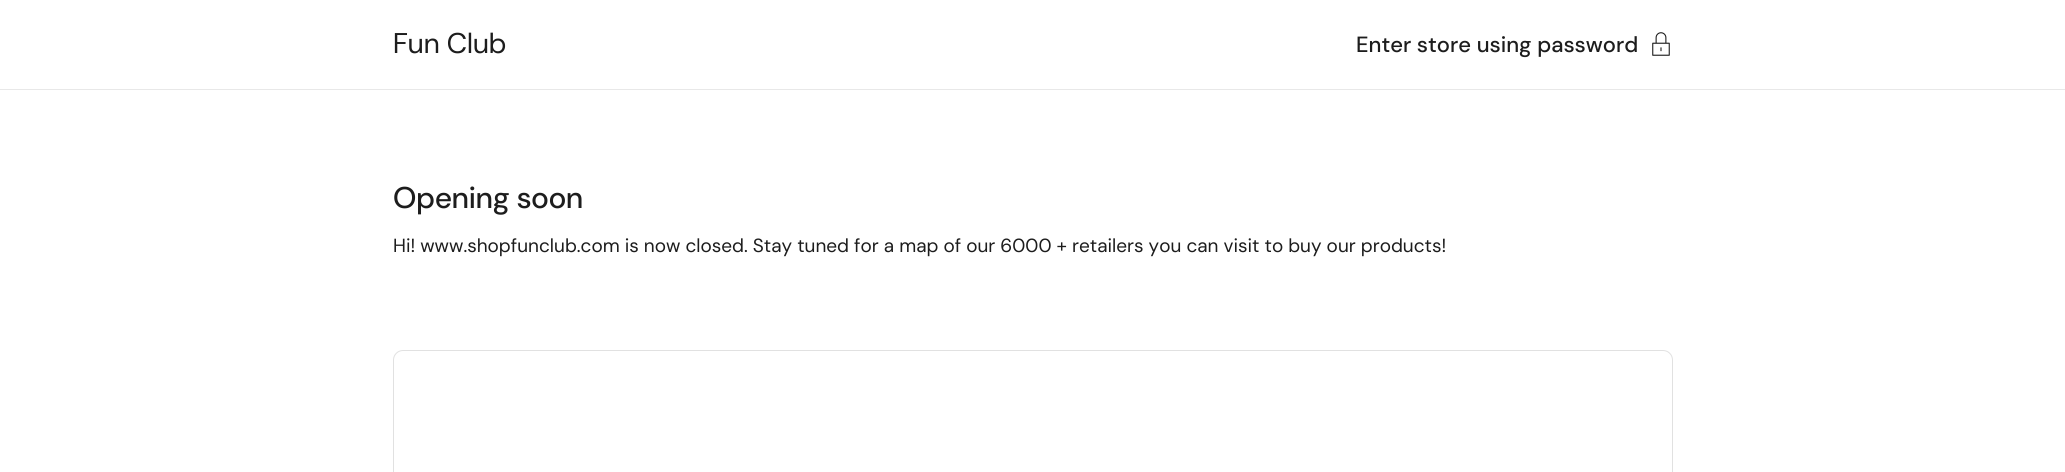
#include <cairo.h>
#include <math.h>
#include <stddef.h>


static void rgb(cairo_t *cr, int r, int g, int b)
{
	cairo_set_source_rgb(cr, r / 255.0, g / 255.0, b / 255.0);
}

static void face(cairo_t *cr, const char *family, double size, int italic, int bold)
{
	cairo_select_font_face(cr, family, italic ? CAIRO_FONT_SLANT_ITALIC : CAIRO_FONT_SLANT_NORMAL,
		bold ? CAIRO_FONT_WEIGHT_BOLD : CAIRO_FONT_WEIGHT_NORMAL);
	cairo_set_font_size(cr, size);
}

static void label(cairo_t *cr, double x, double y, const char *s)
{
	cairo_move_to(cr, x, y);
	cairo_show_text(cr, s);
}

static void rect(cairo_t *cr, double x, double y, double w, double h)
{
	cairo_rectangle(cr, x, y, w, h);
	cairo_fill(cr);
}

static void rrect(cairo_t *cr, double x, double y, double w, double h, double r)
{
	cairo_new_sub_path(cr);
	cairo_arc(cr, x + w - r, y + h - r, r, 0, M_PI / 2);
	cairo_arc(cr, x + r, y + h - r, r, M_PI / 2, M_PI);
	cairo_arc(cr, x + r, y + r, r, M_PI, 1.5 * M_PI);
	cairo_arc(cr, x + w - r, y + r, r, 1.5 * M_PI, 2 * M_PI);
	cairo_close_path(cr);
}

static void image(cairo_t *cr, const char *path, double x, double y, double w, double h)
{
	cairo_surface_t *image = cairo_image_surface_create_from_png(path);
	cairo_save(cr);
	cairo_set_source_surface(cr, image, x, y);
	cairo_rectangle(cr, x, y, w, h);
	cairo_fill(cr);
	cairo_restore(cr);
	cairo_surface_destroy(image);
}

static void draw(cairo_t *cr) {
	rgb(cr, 255, 255, 255);
	cairo_paint(cr);
	rgb(cr, 232, 232, 232);
	rect(cr, 0, 89, 2065, 1);
	face(cr, "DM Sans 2", 28.5, 0, 0);
	rgb(cr, 29, 29, 29);
	label(cr, 393, 53, "Fun Club");
	face(cr, "DM Sans 2 Medium", 22, 0, 0);
	label(cr, 1356, 52, "Enter store using password");
	image(cr, "image0.png", 1652, 32, 18, 24);
	face(cr, "DM Sans Medium", 30, 0, 0);
	label(cr, 393, 208, "Opening soon");
	face(cr, "DM Sans", 19, 0, 0);
	label(cr, 393, 252, "Hi! www.shopfunclub.com is now closed. Stay tuned for a map of our 6000 + retailers you can visit to buy our products!");
	rrect(cr, 393.5, 350.5, 1279, 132, 9.5);
	rgb(cr, 225, 225, 225);
	cairo_set_line_width(cr, 1);
	cairo_stroke(cr);
}

int main(void) {
	cairo_surface_t *surface = cairo_image_surface_create(CAIRO_FORMAT_RGB24, 2065, 472);
	cairo_t *cr = cairo_create(surface);
	cairo_font_options_t *options = cairo_font_options_create();
	cairo_font_options_set_hint_metrics(options, CAIRO_HINT_METRICS_OFF);
	cairo_font_options_set_hint_style(options, CAIRO_HINT_STYLE_NONE);
	cairo_set_font_options(cr, options);
	cairo_set_miter_limit(cr, 4);
	draw(cr);
	cairo_surface_write_to_png(surface, "render.png");
	cairo_font_options_destroy(options);
	cairo_destroy(cr);
	cairo_surface_destroy(surface);
	return 0;
}
